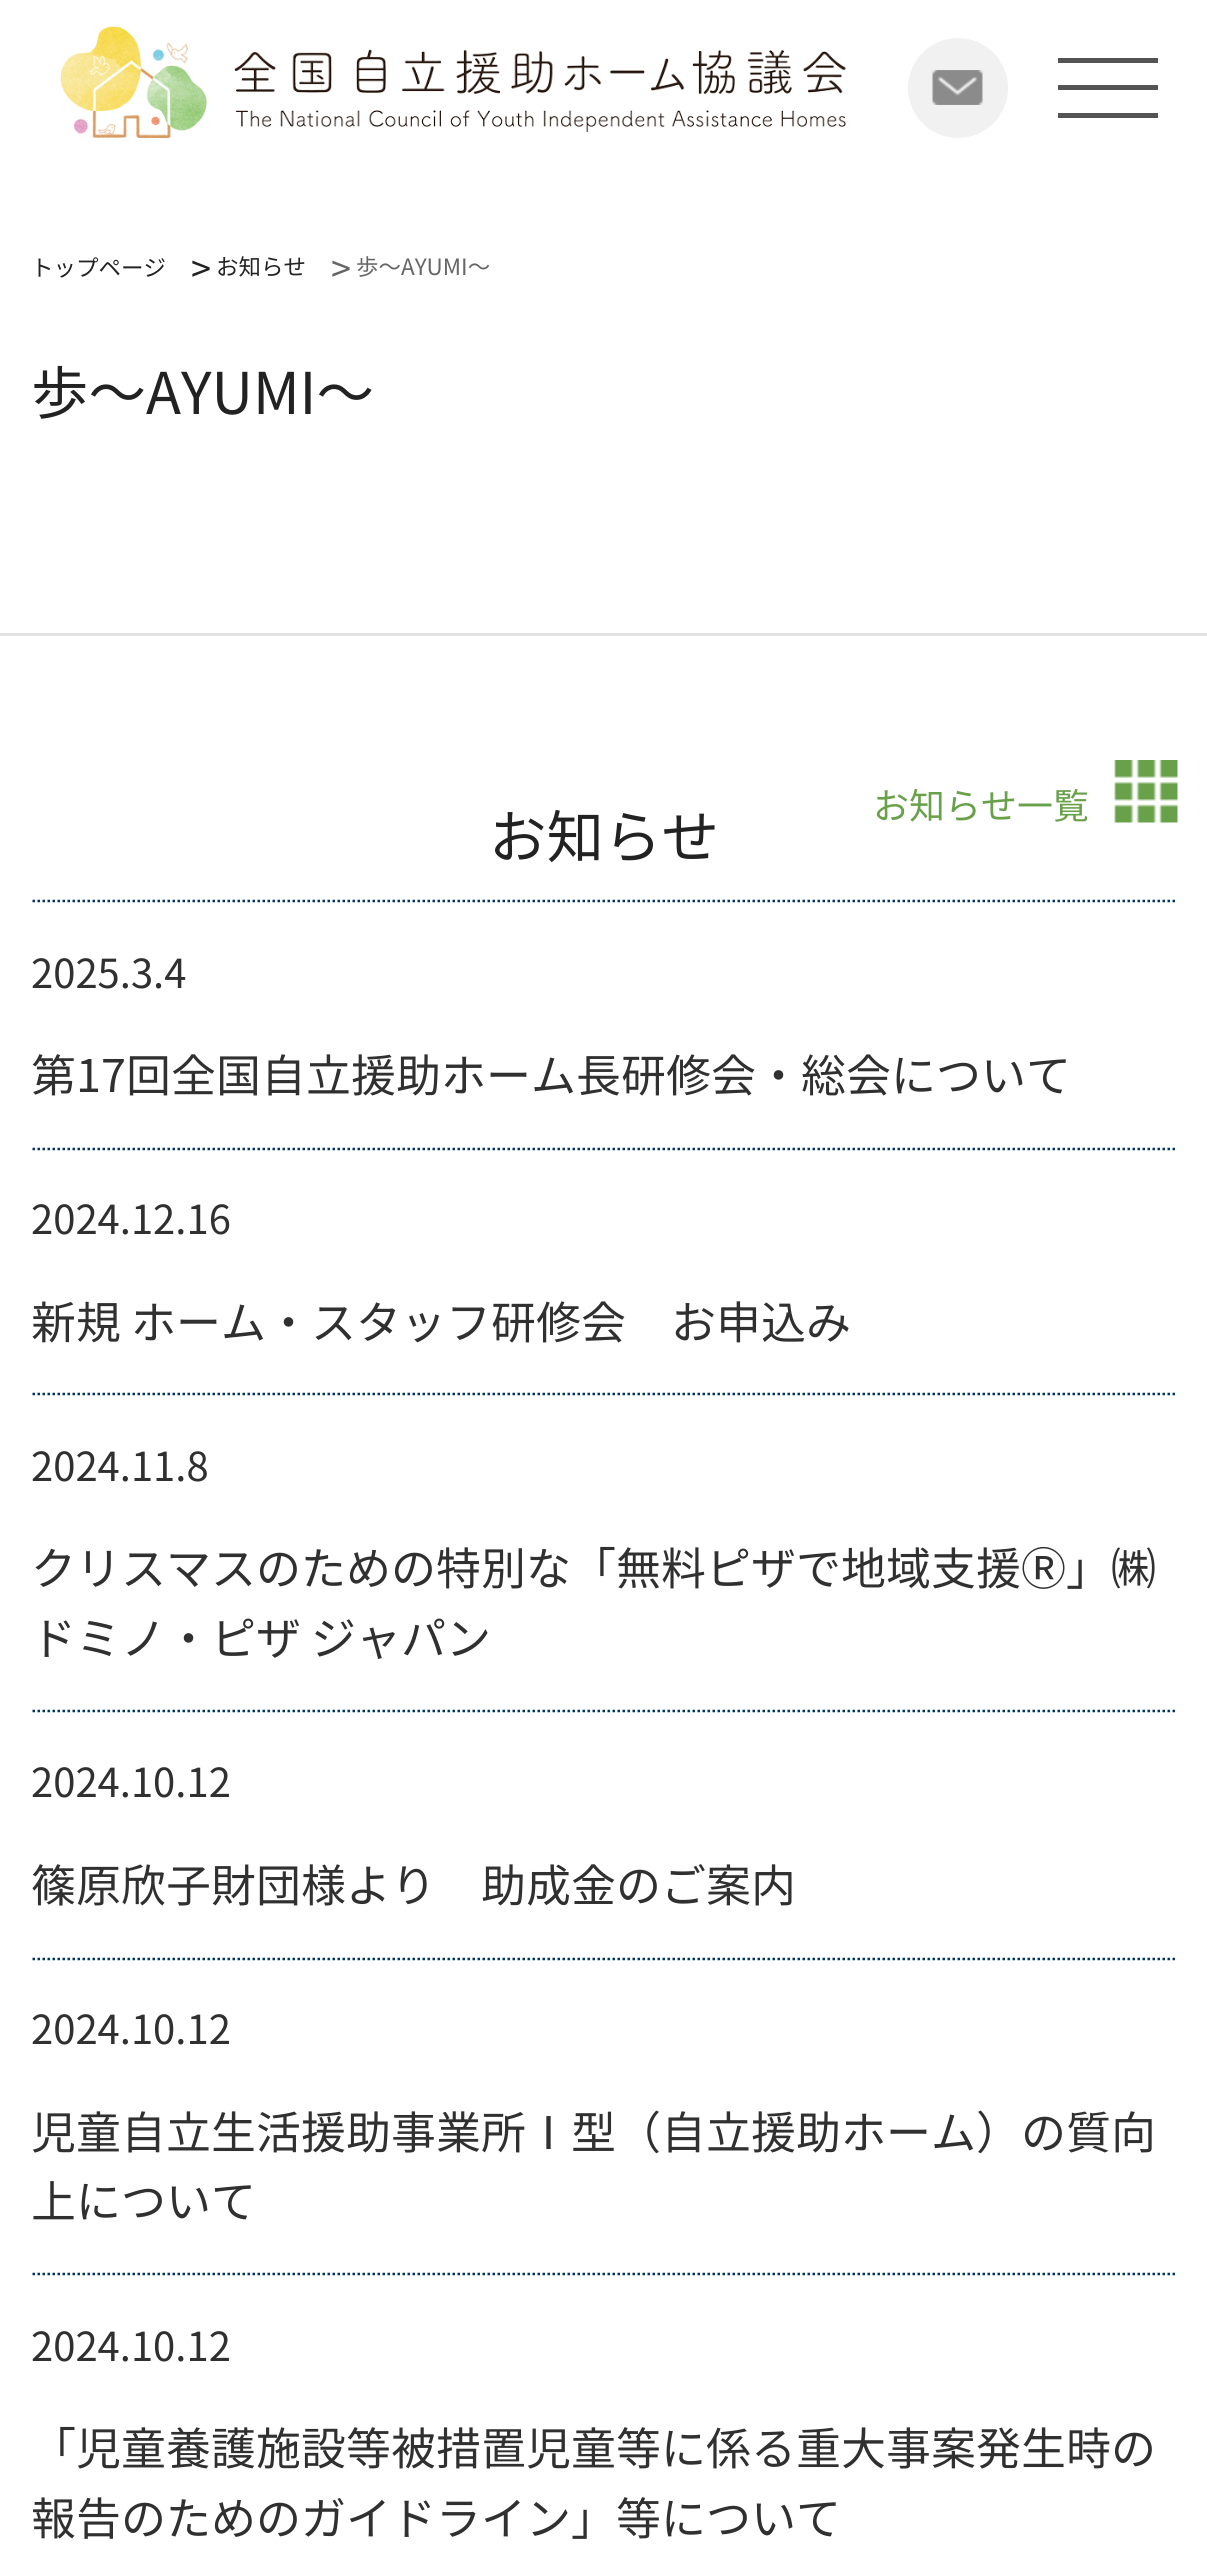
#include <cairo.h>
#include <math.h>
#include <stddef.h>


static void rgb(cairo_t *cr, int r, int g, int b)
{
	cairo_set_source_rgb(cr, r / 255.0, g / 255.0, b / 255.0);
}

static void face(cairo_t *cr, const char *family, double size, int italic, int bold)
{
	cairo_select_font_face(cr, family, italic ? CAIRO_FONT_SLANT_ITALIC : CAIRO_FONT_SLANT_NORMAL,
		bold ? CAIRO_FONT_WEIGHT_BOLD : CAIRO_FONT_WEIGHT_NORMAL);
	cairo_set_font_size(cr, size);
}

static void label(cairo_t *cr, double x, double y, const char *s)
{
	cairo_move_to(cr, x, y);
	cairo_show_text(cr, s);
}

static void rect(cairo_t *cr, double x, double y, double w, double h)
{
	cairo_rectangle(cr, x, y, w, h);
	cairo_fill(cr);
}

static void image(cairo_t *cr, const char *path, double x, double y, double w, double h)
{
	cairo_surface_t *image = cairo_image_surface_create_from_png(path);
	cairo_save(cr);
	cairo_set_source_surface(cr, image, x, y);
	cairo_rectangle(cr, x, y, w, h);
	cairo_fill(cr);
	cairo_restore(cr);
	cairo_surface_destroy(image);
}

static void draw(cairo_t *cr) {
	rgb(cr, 255, 255, 255);
	cairo_paint(cr);
	image(cr, "image0.png", 60, 26, 786, 113);
	rgb(cr, 241, 241, 241);
	cairo_arc(cr, 958, 88, 50, 0, 2 * M_PI);
	cairo_fill(cr);
	image(cr, "image1.png", 932, 70, 51, 35);
	rgb(cr, 84, 84, 84);
	rect(cr, 1058, 58, 100, 5);
	rect(cr, 1058, 85, 100, 5);
	rect(cr, 1058, 113, 100, 5);
	face(cr, "Noto Sans JP", 22.5, 0, 0);
	rgb(cr, 34, 34, 34);
	label(cr, 31, 276, "トップページ");
	face(cr, "Noto Sans JP", 36, 0, 0);
	label(cr, 191, 282, ">");
	face(cr, "Noto Sans JP", 22.5, 0, 0);
	label(cr, 216, 275, "お知らせ");
	face(cr, "Noto Sans JP", 36, 0, 0);
	rgb(cr, 102, 102, 102);
	label(cr, 331, 282, ">");
	face(cr, "Noto Sans JP", 22.5, 0, 0);
	label(cr, 356, 275, "歩～AYUMI～");
	rgb(cr, 226, 226, 226);
	rect(cr, 0, 633, 1207, 3);
	face(cr, "Noto Sans JP", 57.5, 0, 0);
	rgb(cr, 34, 34, 34);
	label(cr, 31, 414, "歩～AYUMI～");
	face(cr, "Noto Sans JP", 36, 0, 0);
	rgb(cr, 105, 160, 74);
	label(cr, 873, 819, "お知らせ一覧");
	image(cr, "image2.png", 1114, 760, 64, 63);
	face(cr, "Noto Sans JP", 57.5, 0, 0);
	rgb(cr, 34, 34, 34);
	label(cr, 489, 858, "お知らせ");
	cairo_new_path(cr);
	cairo_move_to(cr, 32.5, 901);
	cairo_line_to(cr, 1177.5, 901);
	rgb(cr, 0, 51, 101);
	cairo_set_line_width(cr, 2.5);
	cairo_set_dash(cr, (double[]){2.5, 2.5}, 2, 0);
	cairo_stroke(cr);
	face(cr, "Noto Sans JP", 40, 0, 0);
	rgb(cr, 48, 48, 48);
	label(cr, 31, 988, "2025.3.4");
	face(cr, "Noto Sans JP", 45, 0, 0);
	label(cr, 31, 1092, "第17回全国自立援助ホーム長研修会・総会について");
	cairo_new_path(cr);
	cairo_move_to(cr, 32.5, 1149);
	cairo_line_to(cr, 1177.5, 1149);
	rgb(cr, 0, 51, 101);
	cairo_stroke(cr);
	face(cr, "Noto Sans JP", 40, 0, 0);
	rgb(cr, 48, 48, 48);
	label(cr, 31, 1234, "2024.12.16");
	face(cr, "Noto Sans JP", 45, 0, 0);
	label(cr, 31, 1339, "新規 ホーム・スタッフ研修会　お申込み");
	cairo_new_path(cr);
	cairo_move_to(cr, 32.5, 1394);
	cairo_line_to(cr, 1177.5, 1394);
	rgb(cr, 0, 51, 101);
	cairo_stroke(cr);
	face(cr, "Noto Sans JP", 40, 0, 0);
	rgb(cr, 48, 48, 48);
	label(cr, 31, 1481, "2024.11.8");
	face(cr, "Noto Sans JP", 45, 0, 0);
	label(cr, 31, 1585, "クリスマスのための特別な「無料ピザで地域支援Ⓡ」㈱");
	label(cr, 31, 1655, "ドミノ・ピザ ジャパン");
	cairo_new_path(cr);
	cairo_move_to(cr, 32.5, 1711);
	cairo_line_to(cr, 1177.5, 1711);
	rgb(cr, 0, 51, 101);
	cairo_stroke(cr);
	face(cr, "Noto Sans JP", 40, 0, 0);
	rgb(cr, 48, 48, 48);
	label(cr, 31, 1797, "2024.10.12");
	face(cr, "Noto Sans JP", 45, 0, 0);
	label(cr, 31, 1902, "篠原欣子財団様より　助成金のご案内");
	cairo_new_path(cr);
	cairo_move_to(cr, 32.5, 1959);
	cairo_line_to(cr, 1177.5, 1959);
	rgb(cr, 0, 51, 101);
	cairo_stroke(cr);
	face(cr, "Noto Sans JP", 40, 0, 0);
	rgb(cr, 48, 48, 48);
	label(cr, 31, 2044, "2024.10.12");
	face(cr, "Noto Sans JP", 45, 0, 0);
	label(cr, 31, 2149, "児童自立生活援助事業所Ⅰ型（自立援助ホーム）の質向");
	label(cr, 31, 2218, "上について");
	cairo_new_path(cr);
	cairo_move_to(cr, 32.5, 2274);
	cairo_line_to(cr, 1177.5, 2274);
	rgb(cr, 0, 51, 101);
	cairo_stroke(cr);
	face(cr, "Noto Sans JP", 40, 0, 0);
	rgb(cr, 48, 48, 48);
	label(cr, 31, 2361, "2024.10.12");
	face(cr, "Noto Sans JP", 45, 0, 0);
	label(cr, 31, 2465, "「児童養護施設等被措置児童等に係る重大事案発生時の");
	label(cr, 31, 2535, "報告のためのガイドライン」等について");
}

int main(void) {
	cairo_surface_t *surface = cairo_image_surface_create(CAIRO_FORMAT_RGB24, 1207, 2564);
	cairo_t *cr = cairo_create(surface);
	cairo_font_options_t *options = cairo_font_options_create();
	cairo_font_options_set_hint_metrics(options, CAIRO_HINT_METRICS_OFF);
	cairo_font_options_set_hint_style(options, CAIRO_HINT_STYLE_NONE);
	cairo_set_font_options(cr, options);
	cairo_set_miter_limit(cr, 4);
	draw(cr);
	cairo_surface_write_to_png(surface, "render.png");
	cairo_font_options_destroy(options);
	cairo_destroy(cr);
	cairo_surface_destroy(surface);
	return 0;
}
